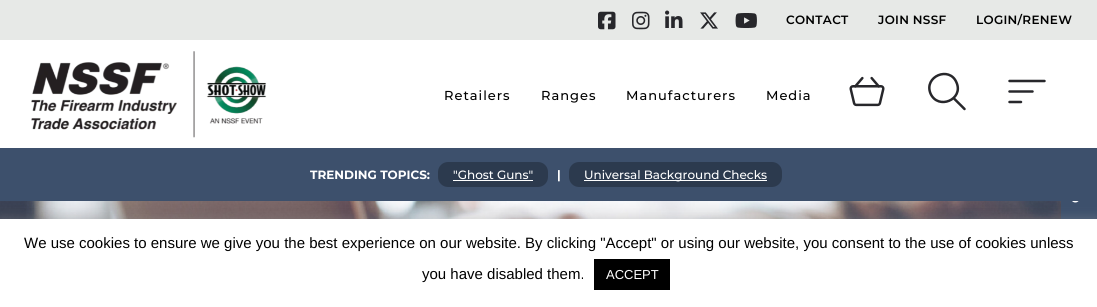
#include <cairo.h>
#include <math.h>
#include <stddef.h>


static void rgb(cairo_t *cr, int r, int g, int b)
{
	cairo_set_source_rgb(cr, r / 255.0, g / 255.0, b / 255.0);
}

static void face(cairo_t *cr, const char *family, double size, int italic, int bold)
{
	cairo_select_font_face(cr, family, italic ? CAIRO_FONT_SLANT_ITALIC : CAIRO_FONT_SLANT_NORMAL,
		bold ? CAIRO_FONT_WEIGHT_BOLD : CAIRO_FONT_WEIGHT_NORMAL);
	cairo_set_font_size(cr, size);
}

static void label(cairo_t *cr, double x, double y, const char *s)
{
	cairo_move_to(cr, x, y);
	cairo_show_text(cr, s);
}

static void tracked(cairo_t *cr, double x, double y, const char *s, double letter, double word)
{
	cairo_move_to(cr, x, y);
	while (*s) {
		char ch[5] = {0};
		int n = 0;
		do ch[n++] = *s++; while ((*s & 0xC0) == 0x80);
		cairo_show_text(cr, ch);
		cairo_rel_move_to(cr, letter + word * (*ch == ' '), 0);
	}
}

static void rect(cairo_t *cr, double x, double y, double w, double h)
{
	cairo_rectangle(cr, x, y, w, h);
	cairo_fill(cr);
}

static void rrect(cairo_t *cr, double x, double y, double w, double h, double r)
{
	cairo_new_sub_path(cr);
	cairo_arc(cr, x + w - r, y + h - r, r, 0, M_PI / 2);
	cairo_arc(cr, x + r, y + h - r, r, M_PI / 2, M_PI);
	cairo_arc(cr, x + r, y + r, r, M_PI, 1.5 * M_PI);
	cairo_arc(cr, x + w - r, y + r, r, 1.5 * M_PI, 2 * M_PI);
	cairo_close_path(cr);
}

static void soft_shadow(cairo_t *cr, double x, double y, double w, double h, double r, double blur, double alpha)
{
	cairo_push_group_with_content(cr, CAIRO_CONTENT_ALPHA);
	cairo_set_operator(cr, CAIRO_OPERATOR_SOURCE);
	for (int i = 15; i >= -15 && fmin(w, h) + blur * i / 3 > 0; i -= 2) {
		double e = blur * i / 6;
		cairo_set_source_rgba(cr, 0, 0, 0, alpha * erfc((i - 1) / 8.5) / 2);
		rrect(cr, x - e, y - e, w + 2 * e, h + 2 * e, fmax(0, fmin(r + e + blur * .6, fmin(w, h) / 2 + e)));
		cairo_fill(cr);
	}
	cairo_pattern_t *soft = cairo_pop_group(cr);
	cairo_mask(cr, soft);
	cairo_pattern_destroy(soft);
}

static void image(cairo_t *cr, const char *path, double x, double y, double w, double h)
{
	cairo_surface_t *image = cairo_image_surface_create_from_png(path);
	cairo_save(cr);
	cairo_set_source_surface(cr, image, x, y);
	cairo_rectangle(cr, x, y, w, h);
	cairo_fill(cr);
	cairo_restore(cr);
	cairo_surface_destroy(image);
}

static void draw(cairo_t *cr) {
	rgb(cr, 255, 255, 255);
	cairo_paint(cr);
	rgb(cr, 231, 233, 231);
	rect(cr, 0, 0, 1097, 40);
	image(cr, "image0.png", 598, 11, 18, 19);
	image(cr, "image1.png", 632, 11, 18, 19);
	image(cr, "image2.png", 665, 10, 18, 18);
	image(cr, "image3.png", 700, 12, 18, 17);
	image(cr, "image4.png", 735, 13, 22, 15);
	face(cr, "Montserrat SemiBold", 12, 0, 0);
	rgb(cr, 0, 0, 0);
	tracked(cr, 786, 24, "CONTACT", 0.3, 0);
	tracked(cr, 878, 24, "JOIN NSSF", 0.3, 0);
	tracked(cr, 976, 24, "LOGIN/RENEW", 0.3, 0);
	image(cr, "image5.png", 31, 62, 146, 68);
	image(cr, "image6.png", 193, 51, 74, 87);
	face(cr, "Montserrat Medium", 13, 0, 0);
	tracked(cr, 444, 100, "Retailers", 1, 0);
	tracked(cr, 541, 100, "Ranges", 1, 0);
	tracked(cr, 626, 100, "Manufacturers", 1, 0);
	tracked(cr, 766, 100, "Media", 1, 0);
	image(cr, "image7.png", 849, 76, 36, 31);
	cairo_new_path(cr);
	cairo_move_to(cr, 930.5, 93.5);
	cairo_curve_to(cr, 938, 110.5, 964, 99.5, 956.5, 82.5);
	cairo_curve_to(cr, 949.5, 65.5, 923.5, 76.5, 930.5, 93.5);
	cairo_close_path(cr);
	cairo_move_to(cr, 953.5, 98);
	cairo_line_to(cr, 964.5, 109);
	rgb(cr, 39, 39, 43);
	cairo_set_line_width(cr, 2.5);
	cairo_set_line_cap(cr, CAIRO_LINE_CAP_ROUND);
	cairo_set_line_join(cr, CAIRO_LINE_JOIN_ROUND);
	cairo_stroke(cr);
	cairo_new_path(cr);
	cairo_move_to(cr, 1009.5, 102);
	cairo_line_to(cr, 1021, 102);
	cairo_move_to(cr, 1009.5, 91.5);
	cairo_line_to(cr, 1032.5, 91.5);
	cairo_move_to(cr, 1009.5, 81);
	cairo_line_to(cr, 1044.5, 81);
	cairo_stroke(cr);
	rgb(cr, 61, 80, 108);
	rect(cr, 0, 148, 1097, 53);
	face(cr, "Montserrat", 12, 0, 1);
	rgb(cr, 255, 255, 255);
	label(cr, 310, 179, "TRENDING TOPICS:");
	rgb(cr, 44, 58, 78);
	rrect(cr, 438, 162, 110, 25, 10);
	cairo_fill(cr);
	face(cr, "Montserrat Medium", 12, 0, 0);
	rgb(cr, 255, 255, 255);
	label(cr, 453, 179, "\"Ghost Guns\"");
	rect(cr, 453, 180, 80, 1);
	face(cr, "Montserrat", 12, 0, 1);
	label(cr, 557, 179, "|");
	rgb(cr, 44, 58, 78);
	rrect(cr, 569, 162, 213, 25, 10);
	cairo_fill(cr);
	rgb(cr, 255, 255, 255);
	rect(cr, 584, 180, 183, 1);
	face(cr, "Montserrat Medium", 12, 0, 0);
	label(cr, 584, 179, "Universal Background Checks");
	image(cr, "image8.png", 0, 201, 1061, 18);
	rgb(cr, 61, 80, 108);
	rect(cr, 1061, 201, 36, 18);
	image(cr, "image9.png", 1072, 201, 7, 2);
	rgb(cr, 172, 171, 171);
	soft_shadow(cr, 0, 218, 1097, 88, 0, 5, 0.3);
	rgb(cr, 255, 255, 255);
	rect(cr, 0, 219, 1097, 88);
	face(cr, "Liberation Sans", 15, 0, 0);
	rgb(cr, 0, 0, 0);
	label(cr, 24, 248, "We use cookies to ensure we give you the best experience on our website. By clicking \"Accept\" or using our website, you consent to the use of cookies unless");
	label(cr, 422, 279, "you have disabled them.");
	rect(cr, 594, 259, 76, 31);
	face(cr, "Liberation Sans", 13, 0, 0);
	rgb(cr, 255, 255, 255);
	label(cr, 606, 279, "ACCEPT");
}

int main(void) {
	cairo_surface_t *surface = cairo_image_surface_create(CAIRO_FORMAT_RGB24, 1097, 307);
	cairo_t *cr = cairo_create(surface);
	cairo_font_options_t *options = cairo_font_options_create();
	cairo_font_options_set_hint_metrics(options, CAIRO_HINT_METRICS_OFF);
	cairo_font_options_set_hint_style(options, CAIRO_HINT_STYLE_NONE);
	cairo_set_font_options(cr, options);
	cairo_set_miter_limit(cr, 4);
	draw(cr);
	cairo_surface_write_to_png(surface, "render.png");
	cairo_font_options_destroy(options);
	cairo_destroy(cr);
	cairo_surface_destroy(surface);
	return 0;
}
